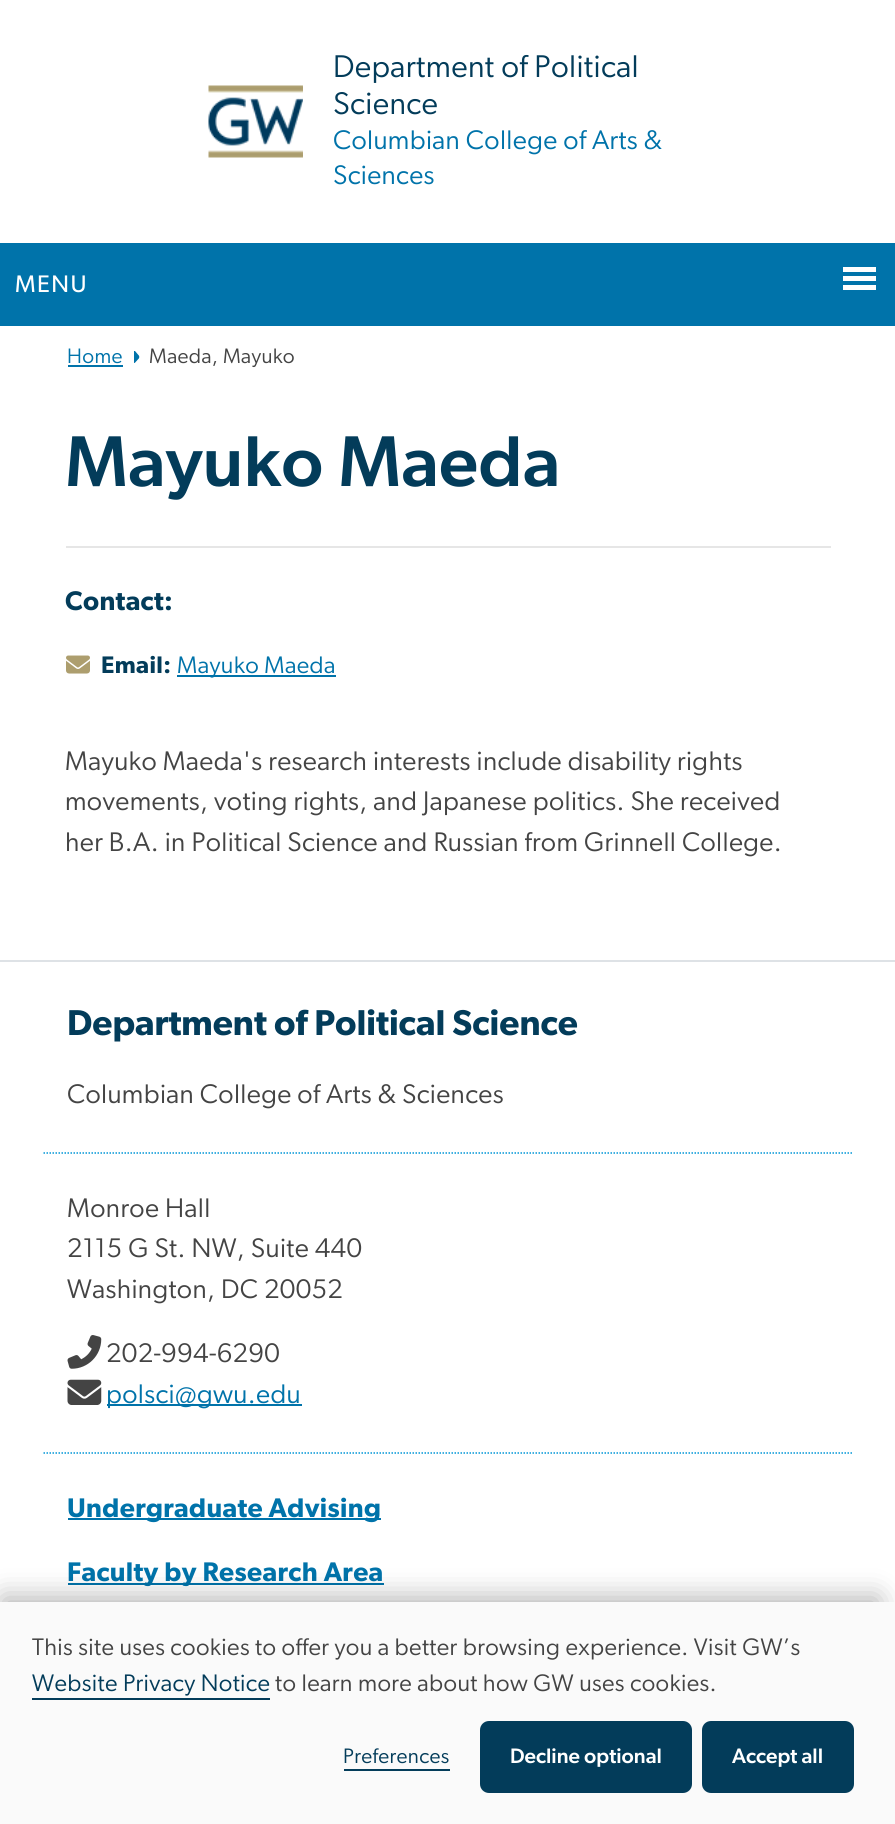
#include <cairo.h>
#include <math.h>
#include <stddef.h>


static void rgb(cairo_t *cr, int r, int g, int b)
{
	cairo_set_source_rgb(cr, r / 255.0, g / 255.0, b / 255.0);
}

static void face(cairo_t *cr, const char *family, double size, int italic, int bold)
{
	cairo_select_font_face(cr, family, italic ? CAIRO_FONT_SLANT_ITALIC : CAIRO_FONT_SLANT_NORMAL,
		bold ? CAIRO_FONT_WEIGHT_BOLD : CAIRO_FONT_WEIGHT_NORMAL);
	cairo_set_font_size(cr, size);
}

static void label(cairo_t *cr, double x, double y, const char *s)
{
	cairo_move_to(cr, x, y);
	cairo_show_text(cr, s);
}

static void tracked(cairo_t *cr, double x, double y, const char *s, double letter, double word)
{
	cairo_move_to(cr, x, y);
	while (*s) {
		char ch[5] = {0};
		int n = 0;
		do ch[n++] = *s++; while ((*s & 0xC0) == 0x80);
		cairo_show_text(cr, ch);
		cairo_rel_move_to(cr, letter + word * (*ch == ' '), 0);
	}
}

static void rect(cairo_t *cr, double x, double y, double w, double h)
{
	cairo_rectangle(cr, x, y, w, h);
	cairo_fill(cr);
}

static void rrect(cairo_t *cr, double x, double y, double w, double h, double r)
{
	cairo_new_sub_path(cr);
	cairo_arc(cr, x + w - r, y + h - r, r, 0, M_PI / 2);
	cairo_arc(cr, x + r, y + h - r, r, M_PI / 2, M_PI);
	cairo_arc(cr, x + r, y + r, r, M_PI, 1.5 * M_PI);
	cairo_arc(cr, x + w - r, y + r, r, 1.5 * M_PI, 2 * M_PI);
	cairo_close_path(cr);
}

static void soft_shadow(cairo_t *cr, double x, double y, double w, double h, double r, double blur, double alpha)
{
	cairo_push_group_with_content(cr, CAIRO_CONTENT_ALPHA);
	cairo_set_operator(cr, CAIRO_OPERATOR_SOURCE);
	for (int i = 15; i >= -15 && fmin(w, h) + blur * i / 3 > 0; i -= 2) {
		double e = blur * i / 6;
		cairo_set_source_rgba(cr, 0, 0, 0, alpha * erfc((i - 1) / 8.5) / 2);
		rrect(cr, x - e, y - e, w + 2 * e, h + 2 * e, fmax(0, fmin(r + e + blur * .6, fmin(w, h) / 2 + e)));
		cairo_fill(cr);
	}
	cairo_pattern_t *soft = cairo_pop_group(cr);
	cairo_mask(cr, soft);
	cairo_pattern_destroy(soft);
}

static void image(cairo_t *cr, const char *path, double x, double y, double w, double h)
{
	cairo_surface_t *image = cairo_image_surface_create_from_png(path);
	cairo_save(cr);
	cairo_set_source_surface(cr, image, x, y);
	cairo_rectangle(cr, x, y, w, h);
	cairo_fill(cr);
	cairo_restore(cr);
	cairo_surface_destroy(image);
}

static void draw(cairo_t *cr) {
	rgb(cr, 255, 255, 255);
	cairo_paint(cr);
	image(cr, "image0.png", 208, 85, 95, 73);
	face(cr, "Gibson", 31.5, 0, 0);
	rgb(cr, 3, 60, 90);
	tracked(cr, 333, 77, "Department of Political", 0.37, 0);
	tracked(cr, 333, 114, "Science", 0.37, 0);
	face(cr, "Gibson", 27, 0, 0);
	rgb(cr, 0, 115, 170);
	tracked(cr, 333, 149, "Columbian College of Arts &", 0.37, 0);
	tracked(cr, 333, 184, "Sciences", 0.37, 0);
	rect(cr, 0, 243, 895, 83);
	face(cr, "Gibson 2", 24, 0, 0);
	rgb(cr, 255, 255, 255);
	tracked(cr, 15, 292, "MENU", 1.5, 0);
	rect(cr, 843, 267, 33, 5);
	rect(cr, 843, 276, 33, 5);
	rect(cr, 843, 285, 33, 5);
	face(cr, "Gibson", 21, 0, 0);
	rgb(cr, 0, 115, 170);
	tracked(cr, 67, 363, "Home", 0.37, 0);
	rect(cr, 68, 365, 55, 2);
	image(cr, "image1.png", 134, 351, 6, 12);
	rgb(cr, 68, 68, 68);
	tracked(cr, 149, 363, "Maeda, Mayuko", 0.37, 0);
	face(cr, "Gibson Medium", 72, 0, 0);
	rgb(cr, 3, 60, 90);
	tracked(cr, 65, 486, "Mayuko Maeda", 0.37, 0);
	rgb(cr, 230, 230, 230);
	rect(cr, 66, 546, 765, 2);
	face(cr, "Gibson SemiBold", 27, 0, 0);
	rgb(cr, 3, 60, 90);
	tracked(cr, 65, 610, "Contact:", 0.37, 0);
	image(cr, "image2.png", 66, 655, 24, 19);
	face(cr, "Gibson SemiBold", 24, 0, 0);
	tracked(cr, 101, 673, "Email:", 0.37, 0);
	rgb(cr, 0, 115, 170);
	rect(cr, 177, 675, 159, 2);
	face(cr, "Gibson", 24, 0, 0);
	tracked(cr, 177, 673, "Mayuko Maeda", 0.37, 0);
	face(cr, "Gibson", 27, 0, 0);
	rgb(cr, 68, 68, 68);
	tracked(cr, 65, 770, "Mayuko Maeda's research interests include disability rights", 0.37, 0);
	tracked(cr, 65, 810, "movements, voting rights, and Japanese politics. She received", 0.37, 0);
	tracked(cr, 65, 851, "her B.A. in Political Science and Russian from Grinnell College.", 0.37, 0);
	rgb(cr, 222, 226, 230);
	rect(cr, 0, 960, 895, 2);
	face(cr, "Gibson SemiBold", 36, 0, 0);
	rgb(cr, 3, 60, 90);
	label(cr, 67, 1035, "Department of Political Science");
	face(cr, "Gibson", 27, 0, 0);
	rgb(cr, 68, 68, 68);
	tracked(cr, 67, 1103, "Columbian College of Arts & Sciences", 0.37, 0);
	cairo_new_path(cr);
	cairo_move_to(cr, 43.5, 1153);
	cairo_line_to(cr, 853.5, 1153);
	rgb(cr, 0, 150, 214);
	cairo_set_line_width(cr, 1.5);
	cairo_set_dash(cr, (double[]){1.5, 1.5}, 2, 0);
	cairo_stroke(cr);
	rgb(cr, 68, 68, 68);
	tracked(cr, 67, 1217, "Monroe Hall", 0.37, 0);
	tracked(cr, 67, 1257, "2115 G St. NW, Suite 440", 0.37, 0);
	tracked(cr, 67, 1298, "Washington, DC 20052", 0.37, 0);
	image(cr, "image3.png", 67, 1335, 35, 34);
	tracked(cr, 106, 1362, "202-994-6290", 0.37, 0);
	image(cr, "image4.png", 67, 1379, 35, 26);
	rgb(cr, 0, 115, 170);
	rect(cr, 107, 1404, 195, 2);
	tracked(cr, 106, 1403, "polsci@gwu.edu", 0.37, 0);
	cairo_new_path(cr);
	cairo_move_to(cr, 43.5, 1453);
	cairo_line_to(cr, 853.5, 1453);
	rgb(cr, 0, 150, 214);
	cairo_stroke(cr);
	rgb(cr, 0, 115, 170);
	rect(cr, 68, 1518, 313, 2);
	face(cr, "Gibson SemiBold", 27, 0, 0);
	tracked(cr, 67, 1517, "Undergraduate Advising", 0.37, 0);
	rect(cr, 68, 1583, 316, 2);
	tracked(cr, 67, 1581, "Faculty by Research Area", 0.37, 0);
	rgb(cr, 5, 5, 5);
	soft_shadow(cr, 3, 1598, 875, 201, 0, 14, 0.32);
	rgb(cr, 250, 250, 250);
	rect(cr, 0, 1602, 895, 222);
	face(cr, "Gibson", 24, 0, 0);
	rgb(cr, 68, 68, 68);
	tracked(cr, 32, 1655, "This site uses cookies to offer you a better browsing experience. Visit GW’s", 0.37, 0);
	rgb(cr, 3, 60, 90);
	rect(cr, 32, 1698, 238, 2);
	tracked(cr, 32, 1691, "Website Privacy Notice", 0.37, 0);
	rgb(cr, 68, 68, 68);
	tracked(cr, 275, 1691, "to learn more about how GW uses cookies.", 0.37, 0);
	rgb(cr, 3, 60, 90);
	rect(cr, 344, 1769, 106, 2);
	face(cr, "Gibson", 21, 0, 0);
	tracked(cr, 343, 1763, "Preferences", 0.37, 0);
	rrect(cr, 482.5, 1723.5, 207, 67, 6.5);
	cairo_fill_preserve(cr);
	cairo_set_line_width(cr, 5);
	cairo_set_dash(cr, NULL, 0, 0);
	cairo_stroke(cr);
	face(cr, "Gibson Medium", 21, 0, 0);
	rgb(cr, 255, 255, 255);
	label(cr, 510, 1763, "Decline optional");
	rgb(cr, 3, 60, 90);
	rrect(cr, 704.5, 1723.5, 147, 67, 6.5);
	cairo_fill_preserve(cr);
	cairo_stroke(cr);
	rgb(cr, 255, 255, 255);
	label(cr, 732, 1763, "Accept all");
}

int main(void) {
	cairo_surface_t *surface = cairo_image_surface_create(CAIRO_FORMAT_RGB24, 895, 1824);
	cairo_t *cr = cairo_create(surface);
	cairo_font_options_t *options = cairo_font_options_create();
	cairo_font_options_set_hint_metrics(options, CAIRO_HINT_METRICS_OFF);
	cairo_font_options_set_hint_style(options, CAIRO_HINT_STYLE_NONE);
	cairo_set_font_options(cr, options);
	cairo_set_miter_limit(cr, 4);
	draw(cr);
	cairo_surface_write_to_png(surface, "render.png");
	cairo_font_options_destroy(options);
	cairo_destroy(cr);
	cairo_surface_destroy(surface);
	return 0;
}
